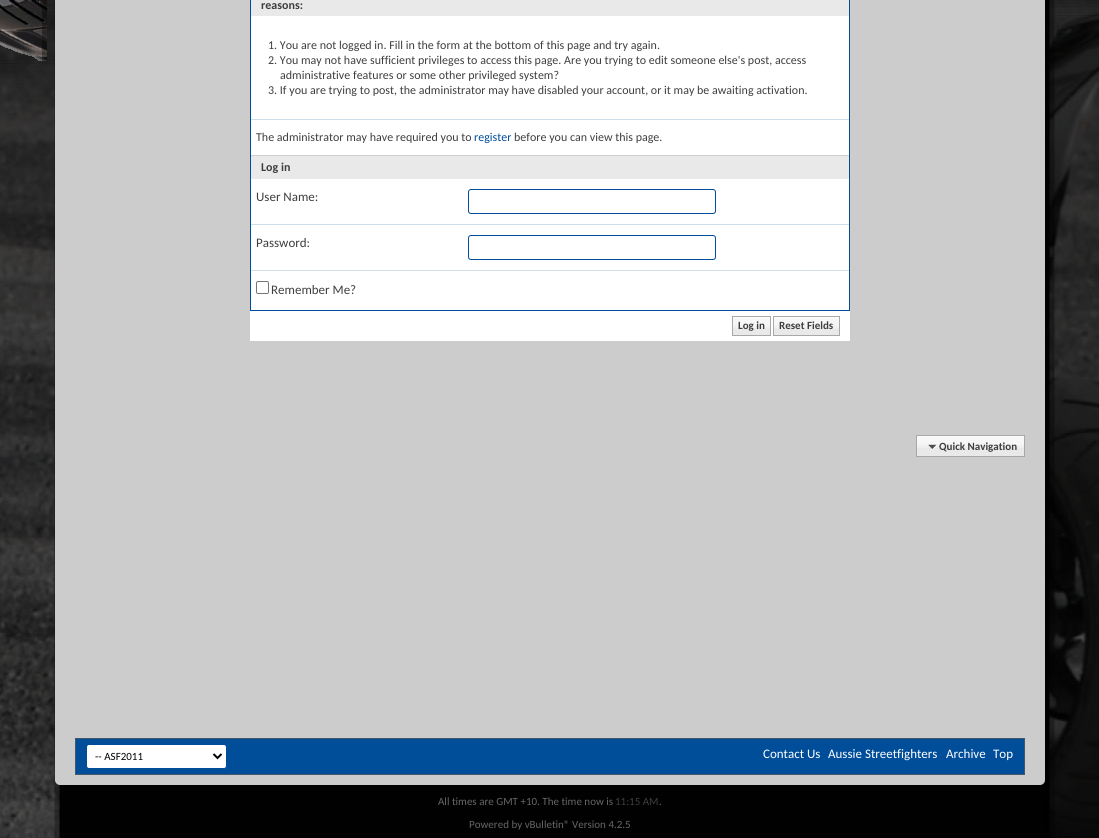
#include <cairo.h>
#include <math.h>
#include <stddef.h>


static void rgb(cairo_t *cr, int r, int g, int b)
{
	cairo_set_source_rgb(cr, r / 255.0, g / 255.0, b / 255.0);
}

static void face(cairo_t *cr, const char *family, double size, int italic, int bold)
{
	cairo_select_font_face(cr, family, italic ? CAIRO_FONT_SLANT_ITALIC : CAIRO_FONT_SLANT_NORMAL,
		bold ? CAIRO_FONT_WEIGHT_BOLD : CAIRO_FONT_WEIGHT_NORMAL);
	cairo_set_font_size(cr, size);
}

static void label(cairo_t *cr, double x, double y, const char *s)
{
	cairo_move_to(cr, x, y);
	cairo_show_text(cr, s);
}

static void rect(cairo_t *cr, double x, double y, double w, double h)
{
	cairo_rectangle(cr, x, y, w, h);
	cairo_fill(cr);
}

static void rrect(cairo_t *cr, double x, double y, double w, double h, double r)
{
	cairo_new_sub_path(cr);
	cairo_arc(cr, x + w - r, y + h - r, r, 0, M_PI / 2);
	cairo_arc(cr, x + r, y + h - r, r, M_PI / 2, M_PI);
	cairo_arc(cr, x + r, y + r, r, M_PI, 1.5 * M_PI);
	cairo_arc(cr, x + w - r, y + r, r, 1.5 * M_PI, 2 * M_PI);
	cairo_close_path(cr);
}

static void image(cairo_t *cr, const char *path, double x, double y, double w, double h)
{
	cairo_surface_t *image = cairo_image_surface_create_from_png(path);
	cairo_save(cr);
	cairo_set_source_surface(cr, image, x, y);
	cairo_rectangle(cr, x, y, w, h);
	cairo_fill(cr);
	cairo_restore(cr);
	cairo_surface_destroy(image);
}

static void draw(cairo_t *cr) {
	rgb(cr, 255, 255, 255);
	cairo_paint(cr);
	image(cr, "image0.png", 0, 0, 1099, 838);
	image(cr, "image1.png", 0, 0, 47, 61);
	rgb(cr, 204, 204, 204);
	rrect(cr, 55, -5, 990, 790, 5);
	cairo_fill(cr);
	rgb(cr, 255, 255, 255);
	rect(cr, 251, 16, 598, 294);
	rgb(cr, 0, 77, 154);
	rect(cr, 849, 0, 1, 311);
	rect(cr, 250, 310, 600, 1);
	rect(cr, 250, 0, 1, 311);
	rgb(cr, 233, 233, 233);
	rect(cr, 251, 0, 598, 16);
	face(cr, "Carlito", 12, 0, 1);
	rgb(cr, 62, 62, 62);
	label(cr, 261, 9, "reasons:");
	face(cr, "Carlito", 12, 0, 0);
	label(cr, 268, 49, "1. You are not logged in. Fill in the form at the bottom of this page and try again.");
	label(cr, 268, 64, "2. You may not have sufficient privileges to access this page. Are you trying to edit someone else's post, access");
	label(cr, 280, 79, "administrative features or some other privileged system?");
	label(cr, 268, 94, "3. If you are trying to post, the administrator may have disabled your account, or it may be awaiting activation.");
	rgb(cr, 206, 223, 235);
	rect(cr, 251, 119, 598, 1);
	rgb(cr, 62, 62, 62);
	label(cr, 256, 141, "The administrator may have required you to");
	rgb(cr, 0, 77, 154);
	label(cr, 474, 141, "register");
	rgb(cr, 62, 62, 62);
	label(cr, 514, 141, "before you can view this page.");
	rgb(cr, 233, 233, 233);
	rect(cr, 251, 156, 598, 23);
	rgb(cr, 206, 206, 206);
	rect(cr, 251, 155, 598, 1);
	face(cr, "Carlito", 12, 0, 1);
	rgb(cr, 62, 62, 62);
	label(cr, 261, 171, "Log in");
	face(cr, "Carlito", 13, 0, 0);
	label(cr, 256, 201, "User Name:");
	rrect(cr, 468.5, 189.5, 247, 24, 2.5);
	rgb(cr, 0, 77, 154);
	cairo_set_line_width(cr, 1);
	cairo_stroke(cr);
	rgb(cr, 206, 223, 235);
	rect(cr, 251, 224, 598, 1);
	rgb(cr, 62, 62, 62);
	label(cr, 256, 247, "Password:");
	rrect(cr, 468.5, 235.5, 247, 24, 2.5);
	rgb(cr, 0, 77, 154);
	cairo_stroke(cr);
	rgb(cr, 206, 223, 235);
	rect(cr, 251, 270, 598, 1);
	rrect(cr, 256.5, 281.5, 12, 12, 1.5);
	rgb(cr, 118, 118, 118);
	cairo_stroke(cr);
	rgb(cr, 62, 62, 62);
	label(cr, 271, 294, "Remember Me?");
	rgb(cr, 255, 255, 255);
	rect(cr, 250, 311, 600, 30);
	rgb(cr, 233, 233, 233);
	rect(cr, 733, 317, 37, 18);
	image(cr, "image2.png", 733, 317, 37, 12);
	cairo_rectangle(cr, 732.5, 316.5, 38, 19);
	rgb(cr, 168, 168, 168);
	cairo_stroke(cr);
	face(cr, "Carlito", 11, 0, 1);
	rgb(cr, 62, 62, 62);
	label(cr, 738, 329, "Log in");
	rgb(cr, 233, 233, 233);
	rect(cr, 774, 317, 65, 18);
	image(cr, "image3.png", 774, 317, 65, 12);
	cairo_rectangle(cr, 773.5, 316.5, 66, 19);
	rgb(cr, 168, 168, 168);
	cairo_stroke(cr);
	rgb(cr, 62, 62, 62);
	label(cr, 779, 329, "Reset Fields");
	rgb(cr, 233, 233, 233);
	rect(cr, 917, 436, 107, 20);
	image(cr, "image4.png", 917, 436, 107, 12);
	cairo_rectangle(cr, 916.5, 435.5, 108, 21);
	rgb(cr, 168, 168, 168);
	cairo_stroke(cr);
	image(cr, "image5.png", 928, 444, 9, 6);
	rgb(cr, 62, 62, 62);
	label(cr, 939, 450, "Quick Navigation");
	rgb(cr, 0, 77, 154);
	cairo_rectangle(cr, 75.5, 738.5, 949, 36);
	cairo_fill_preserve(cr);
	rgb(cr, 66, 87, 105);
	cairo_stroke(cr);
	rgb(cr, 255, 255, 255);
	rrect(cr, 86.5, 744.5, 140, 24, 2.5);
	cairo_fill_preserve(cr);
	rgb(cr, 0, 77, 154);
	cairo_stroke(cr);
	cairo_new_path(cr);
	cairo_move_to(cr, 213.5, 754);
	cairo_line_to(cr, 217.5, 758);
	cairo_line_to(cr, 221.5, 754);
	rgb(cr, 0, 0, 0);
	cairo_set_line_width(cr, 2);
	cairo_stroke(cr);
	face(cr, "Carlito", 11, 0, 0);
	label(cr, 95, 760, "-- ASF2011");
	face(cr, "Carlito", 13, 0, 0);
	rgb(cr, 255, 255, 255);
	label(cr, 763, 758, "Contact Us");
	label(cr, 828, 758, "Aussie Streetfighters");
	label(cr, 946, 758, "Archive");
	label(cr, 993, 758, "Top");
	face(cr, "Carlito", 11, 0, 0);
	rgb(cr, 102, 102, 102);
	label(cr, 438, 805, "All times are GMT +10. The time now is");
	rgb(cr, 62, 62, 62);
	label(cr, 615, 805, "11:15 AM");
	rgb(cr, 102, 102, 102);
	label(cr, 659, 805, ".");
	label(cr, 469, 828, "Powered by vBulletin® Version 4.2.5");
}

int main(void) {
	cairo_surface_t *surface = cairo_image_surface_create(CAIRO_FORMAT_RGB24, 1099, 838);
	cairo_t *cr = cairo_create(surface);
	cairo_font_options_t *options = cairo_font_options_create();
	cairo_font_options_set_hint_metrics(options, CAIRO_HINT_METRICS_OFF);
	cairo_font_options_set_hint_style(options, CAIRO_HINT_STYLE_NONE);
	cairo_set_font_options(cr, options);
	cairo_set_miter_limit(cr, 4);
	draw(cr);
	cairo_surface_write_to_png(surface, "render.png");
	cairo_font_options_destroy(options);
	cairo_destroy(cr);
	cairo_surface_destroy(surface);
	return 0;
}
